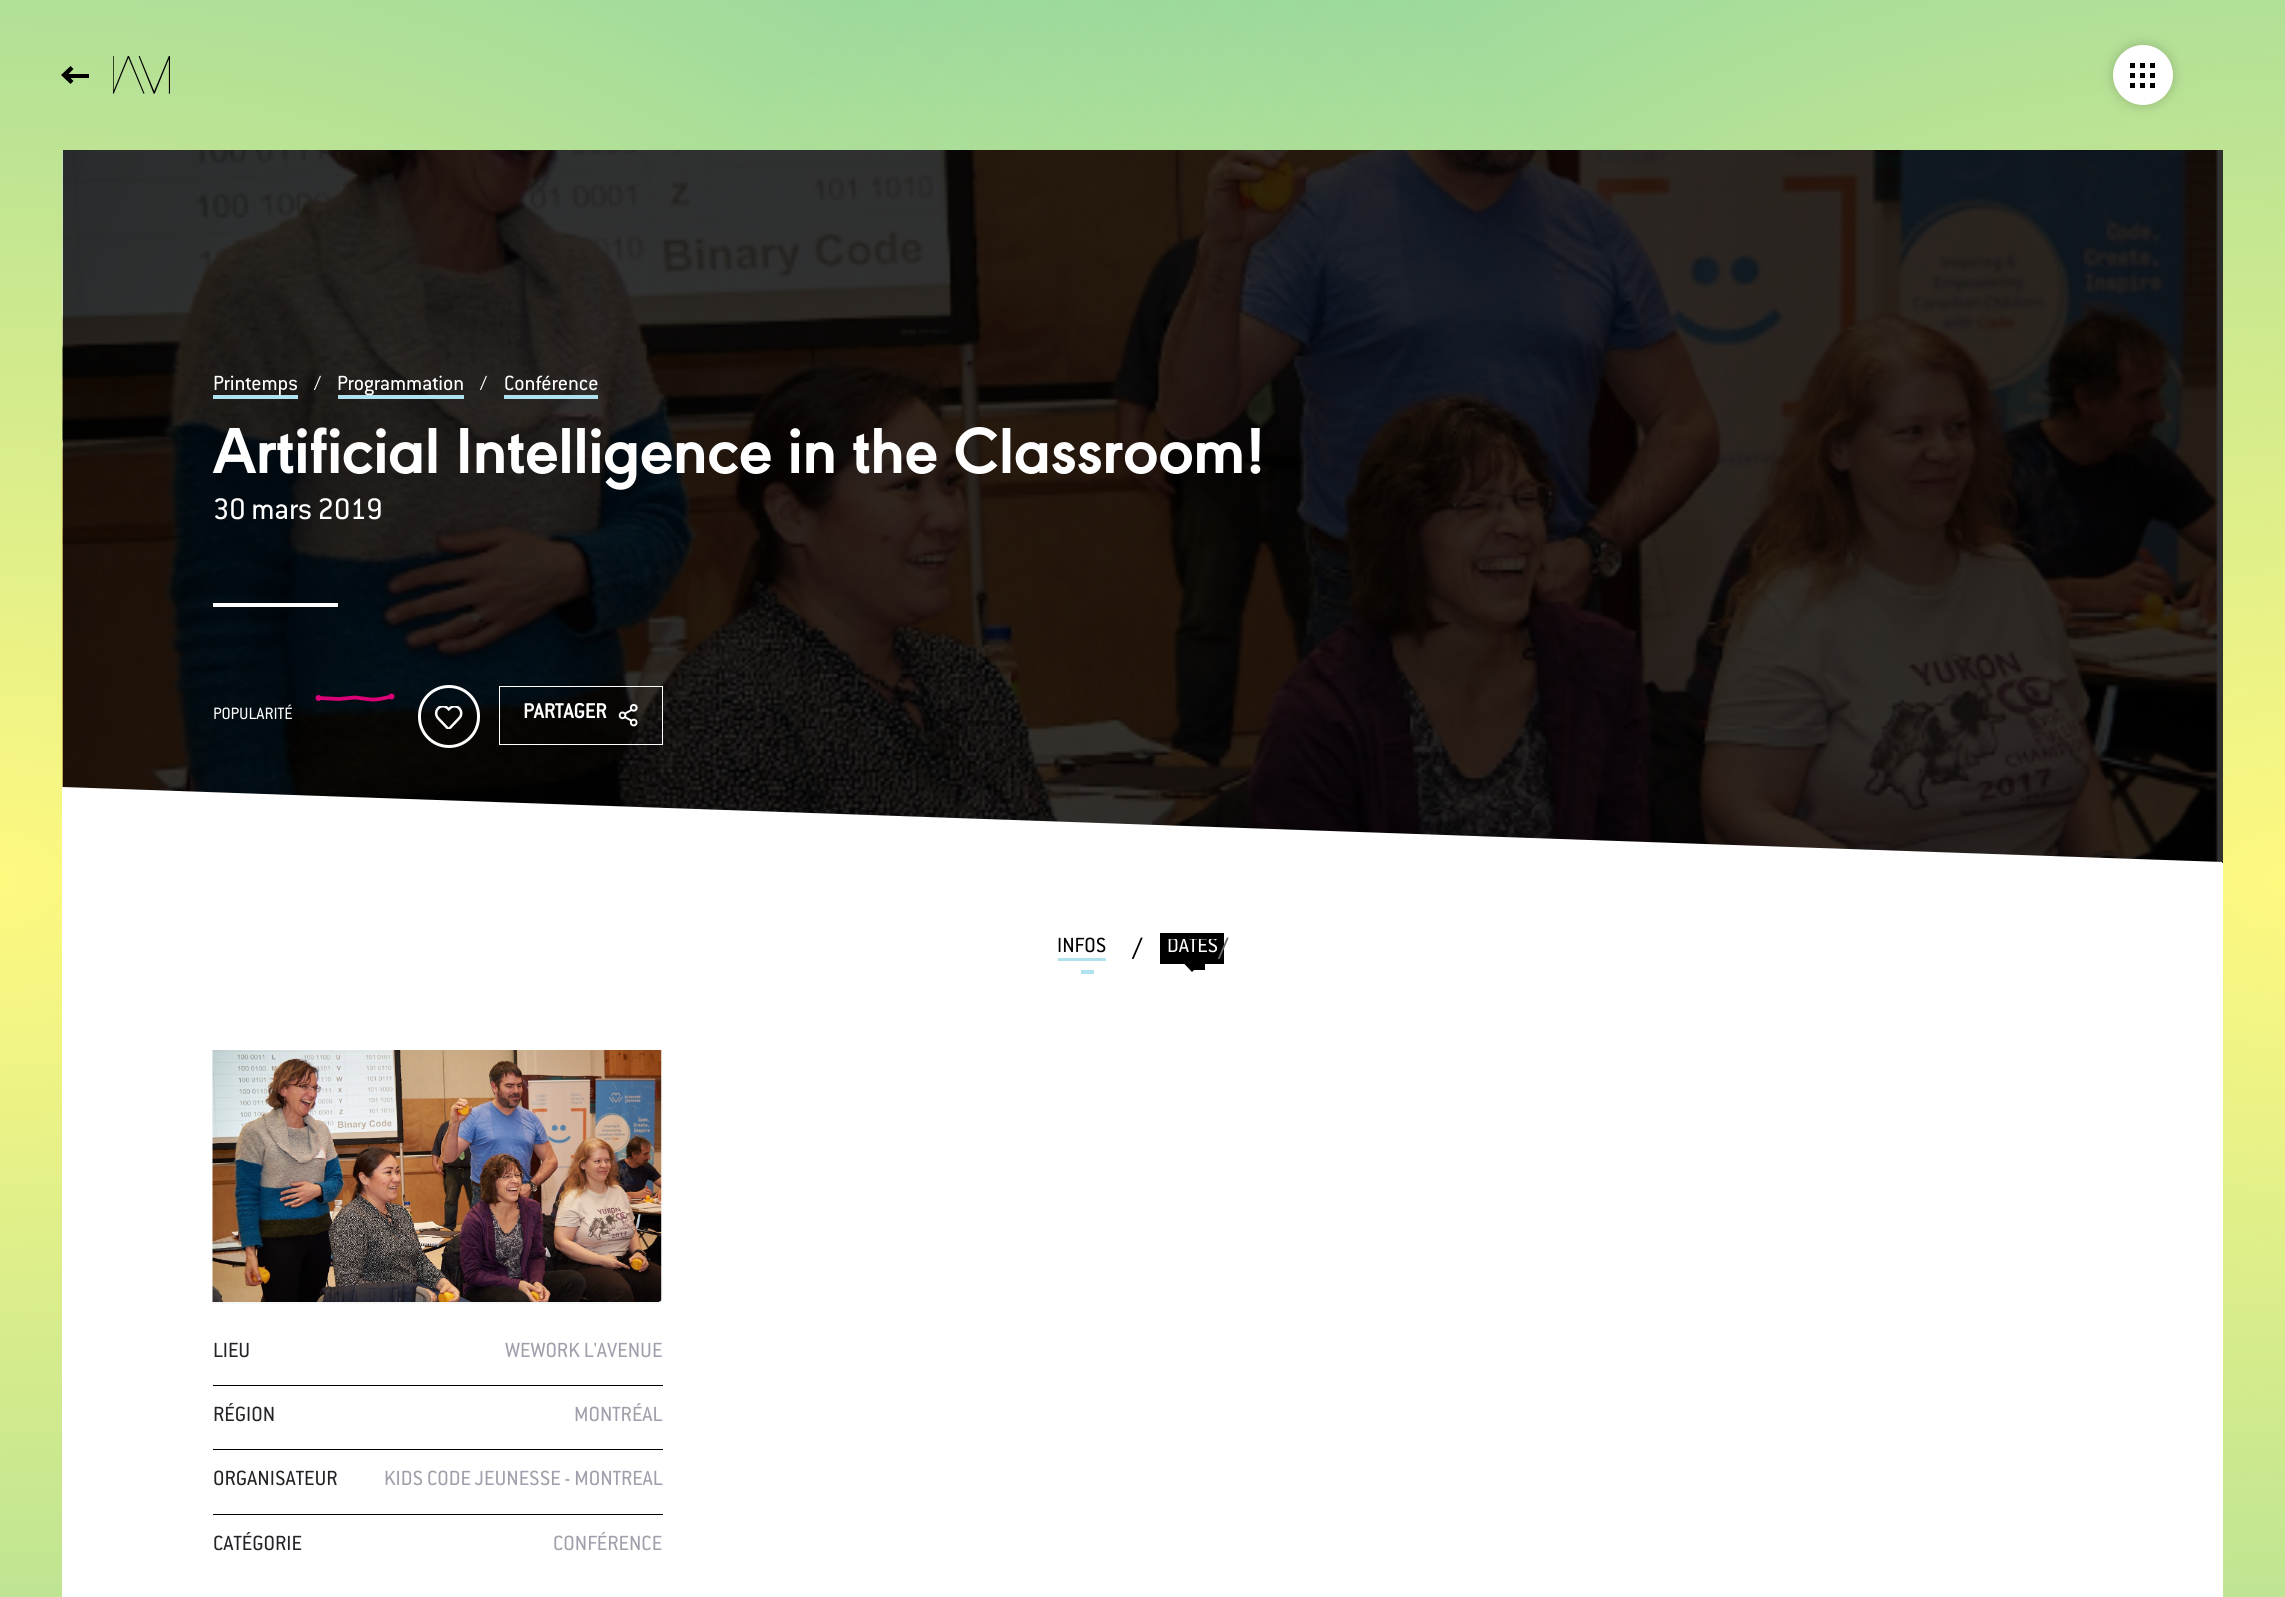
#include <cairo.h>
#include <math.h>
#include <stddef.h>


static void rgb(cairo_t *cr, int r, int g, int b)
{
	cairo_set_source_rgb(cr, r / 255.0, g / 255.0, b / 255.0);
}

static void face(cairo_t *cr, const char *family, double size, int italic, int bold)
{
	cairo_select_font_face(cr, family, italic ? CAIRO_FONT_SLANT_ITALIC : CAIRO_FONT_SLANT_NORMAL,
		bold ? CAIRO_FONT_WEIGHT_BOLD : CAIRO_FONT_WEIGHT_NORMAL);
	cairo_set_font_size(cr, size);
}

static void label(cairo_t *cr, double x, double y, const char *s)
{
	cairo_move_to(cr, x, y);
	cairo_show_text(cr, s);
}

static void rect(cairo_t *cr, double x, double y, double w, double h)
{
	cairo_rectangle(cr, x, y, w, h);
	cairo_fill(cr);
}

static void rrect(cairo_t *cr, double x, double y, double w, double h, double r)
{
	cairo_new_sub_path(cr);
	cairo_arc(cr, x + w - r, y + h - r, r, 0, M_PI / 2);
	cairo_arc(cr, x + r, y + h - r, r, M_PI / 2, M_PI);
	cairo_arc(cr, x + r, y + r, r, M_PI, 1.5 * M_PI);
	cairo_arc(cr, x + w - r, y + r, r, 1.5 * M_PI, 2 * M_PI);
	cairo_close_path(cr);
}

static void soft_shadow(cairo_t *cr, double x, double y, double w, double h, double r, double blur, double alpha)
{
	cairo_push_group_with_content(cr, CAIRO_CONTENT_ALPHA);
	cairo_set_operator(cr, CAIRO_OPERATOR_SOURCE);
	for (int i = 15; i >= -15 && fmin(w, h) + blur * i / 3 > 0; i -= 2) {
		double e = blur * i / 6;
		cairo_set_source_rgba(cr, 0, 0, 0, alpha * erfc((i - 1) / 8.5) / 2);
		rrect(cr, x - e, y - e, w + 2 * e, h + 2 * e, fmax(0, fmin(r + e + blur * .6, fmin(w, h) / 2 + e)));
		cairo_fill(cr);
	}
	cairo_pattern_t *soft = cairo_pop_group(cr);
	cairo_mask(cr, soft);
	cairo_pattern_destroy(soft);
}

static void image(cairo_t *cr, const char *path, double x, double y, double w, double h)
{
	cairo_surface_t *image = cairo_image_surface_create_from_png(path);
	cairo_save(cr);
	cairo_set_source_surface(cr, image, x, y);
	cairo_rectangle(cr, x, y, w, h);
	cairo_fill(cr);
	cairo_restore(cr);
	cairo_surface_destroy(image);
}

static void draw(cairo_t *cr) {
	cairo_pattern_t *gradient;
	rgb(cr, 255, 255, 255);
	cairo_paint(cr);
	gradient = cairo_pattern_create_radial(0, 0, 0, 0, 0, 1);
	cairo_pattern_set_matrix(gradient, &(cairo_matrix_t){1.0 / 3635, 0, 0, 1.0 / 2796, -1.0 * 0 / 3635, -1.0 * 879 / 2796});
	cairo_pattern_add_color_stop_rgba(gradient, 0, 1, 0.976, 0.502, 1);
	cairo_pattern_add_color_stop_rgba(gradient, 0.5, 0.502, 0.816, 0.647, 1);
	cairo_set_source(cr, gradient);
	cairo_pattern_destroy(gradient);
	rect(cr, 0, 0, 2285, 1597);
	gradient = cairo_pattern_create_radial(0, 0, 0, 0, 0, 1);
	cairo_pattern_set_matrix(gradient, &(cairo_matrix_t){1.0 / 3635, 0, 0, 1.0 / 2796, -1.0 * 2285 / 3635, -1.0 * 879 / 2796});
	cairo_pattern_add_color_stop_rgba(gradient, 0, 1, 0.976, 0.502, 1);
	cairo_pattern_add_color_stop_rgba(gradient, 0.5, 1, 0.976, 0.502, 0);
	cairo_set_source(cr, gradient);
	cairo_pattern_destroy(gradient);
	rect(cr, 770, 0, 1515, 1597);
	image(cr, "image0.png", 113, 56, 57, 38);
	rgb(cr, 0, 0, 0);
	soft_shadow(cr, 2113, 45, 60, 60, 30, 6, 0.2);
	rgb(cr, 255, 255, 255);
	cairo_arc(cr, 2143, 75, 30, 0, 2 * M_PI);
	cairo_fill(cr);
	rgb(cr, 0, 0, 0);
	rect(cr, 2130, 63, 5, 5);
	rect(cr, 2140, 63, 5, 5);
	rect(cr, 2150, 63, 5, 5);
	rect(cr, 2130, 73, 5, 5);
	rect(cr, 2140, 73, 5, 5);
	rect(cr, 2150, 73, 5, 5);
	rect(cr, 2130, 83, 5, 5);
	rect(cr, 2140, 83, 5, 5);
	rect(cr, 2150, 83, 5, 5);
	cairo_new_path(cr);
	cairo_move_to(cr, 73.5, 81);
	cairo_line_to(cr, 67.5, 75);
	cairo_line_to(cr, 73.5, 69);
	cairo_line_to(cr, 70.5, 66);
	cairo_line_to(cr, 61, 75);
	cairo_line_to(cr, 70.5, 84);
	cairo_close_path(cr);
	cairo_fill(cr);
	cairo_new_path(cr);
	cairo_move_to(cr, 66, 74);
	cairo_line_to(cr, 89, 74);
	cairo_line_to(cr, 89, 78);
	cairo_line_to(cr, 66, 78);
	cairo_curve_to(cr, 65, 78, 64, 77, 64, 76);
	cairo_curve_to(cr, 64, 75, 65, 74, 66, 74);
	cairo_close_path(cr);
	cairo_fill(cr);
	image(cr, "image1.png", 62, 150, 2161, 713);
	cairo_set_source_rgba(cr, 0, 0, 0, 0.8);
	rect(cr, 63, 150, 2160, 713);
	rgb(cr, 176, 225, 238);
	cairo_new_path(cr);
	cairo_move_to(cr, 213, 395);
	cairo_line_to(cr, 213, 399);
	cairo_line_to(cr, 298, 399);
	cairo_line_to(cr, 298, 380);
	cairo_line_to(cr, 298, 395);
	cairo_close_path(cr);
	cairo_fill(cr);
	face(cr, "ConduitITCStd", 22.5, 0, 0);
	rgb(cr, 255, 255, 255);
	label(cr, 213, 390, "Printemps");
	label(cr, 314, 390, "/");
	rgb(cr, 176, 225, 238);
	cairo_new_path(cr);
	cairo_move_to(cr, 338, 395);
	cairo_line_to(cr, 338, 399);
	cairo_line_to(cr, 464, 399);
	cairo_line_to(cr, 464, 380);
	cairo_line_to(cr, 464, 395);
	cairo_close_path(cr);
	cairo_fill(cr);
	rgb(cr, 255, 255, 255);
	label(cr, 337, 390, "Programmation");
	label(cr, 480, 390, "/");
	label(cr, 504, 390, "Conférence");
	rgb(cr, 176, 225, 238);
	cairo_new_path(cr);
	cairo_move_to(cr, 504, 395);
	cairo_line_to(cr, 504, 399);
	cairo_line_to(cr, 598, 399);
	cairo_line_to(cr, 598, 380);
	cairo_line_to(cr, 598, 395);
	cairo_close_path(cr);
	cairo_fill(cr);
	face(cr, "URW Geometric", 67.5, 0, 1);
	rgb(cr, 255, 255, 255);
	label(cr, 213, 473, "Artificial Intelligence in the Classroom!");
	face(cr, "ConduitITCStd", 32.5, 0, 0);
	label(cr, 213, 519, "30 mars 2019");
	rect(cr, 213, 603, 125, 4);
	cairo_new_path(cr);
	cairo_move_to(cr, 318.5, 698);
	cairo_line_to(cr, 339, 699);
	cairo_line_to(cr, 355, 697.5);
	cairo_line_to(cr, 371, 699.5);
	cairo_curve_to(cr, 378, 700, 384.5, 698, 391.5, 696.5);
	rgb(cr, 219, 0, 118);
	cairo_set_line_width(cr, 3.8);
	cairo_stroke(cr);
	cairo_arc(cr, 391.5, 696.5, 3, 0, 2 * M_PI);
	cairo_fill(cr);
	cairo_arc(cr, 318.5, 698, 3, 0, 2 * M_PI);
	cairo_fill(cr);
	rrect(cr, 419.5, 686.5, 59, 60, 29.5);
	rgb(cr, 255, 255, 255);
	cairo_set_line_width(cr, 3);
	cairo_stroke(cr);
	image(cr, "image2.png", 434, 706, 29, 23);
	face(cr, "ConduitITCStd", 18, 0, 0);
	label(cr, 213, 719, "POPULARITÉ");
	cairo_rectangle(cr, 499.5, 686.5, 163, 58);
	cairo_set_line_width(cr, 1);
	cairo_stroke(cr);
	face(cr, "ConduitITCStd", 22.5, 0, 1);
	label(cr, 523, 718, "PARTAGER");
	image(cr, "image3.png", 618, 703, 20, 24);
	rect(cr, 2222, 863, 1, 734);
	cairo_new_path(cr);
	cairo_move_to(cr, 62, 787);
	cairo_line_to(cr, 2222, 862);
	cairo_line_to(cr, 2222, 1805);
	cairo_line_to(cr, 62, 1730);
	cairo_close_path(cr);
	cairo_fill(cr);
	face(cr, "ConduitITCStd", 22.5, 0, 0);
	rgb(cr, 0, 0, 0);
	label(cr, 1057, 952, "INFOS");
	rgb(cr, 176, 225, 238);
	cairo_new_path(cr);
	cairo_move_to(cr, 1081, 961);
	cairo_line_to(cr, 1081, 974);
	cairo_line_to(cr, 1094, 974);
	cairo_line_to(cr, 1094, 961);
	cairo_line_to(cr, 1094, 970);
	cairo_line_to(cr, 1081, 970);
	cairo_close_path(cr);
	cairo_fill(cr);
	rect(cr, 1058, 958, 48, 3);
	face(cr, "ConduitITCStd", 34, 0, 0);
	rgb(cr, 0, 0, 0);
	label(cr, 1132, 959, "/");
	cairo_new_path(cr);
	cairo_move_to(cr, 1192, 954.5);
	cairo_line_to(cr, 1201, 963);
	cairo_line_to(cr, 1192, 972);
	cairo_line_to(cr, 1183.5, 963);
	cairo_close_path(cr);
	cairo_fill(cr);
	rect(cr, 1193, 964, 12, 6);
	rect(cr, 1166, 939, 52, 19);
	face(cr, "ConduitITCStd", 22.5, 0, 0);
	rgb(cr, 255, 255, 255);
	label(cr, 1167, 952, "DATES");
	cairo_rectangle(cr, 1163, 936, 58, 25);
	rgb(cr, 0, 0, 0);
	cairo_set_line_width(cr, 6);
	cairo_stroke(cr);
	face(cr, "ConduitITCStd", 34, 0, 0);
	rgb(cr, 104, 104, 104);
	label(cr, 1218, 959, "/");
	image(cr, "image4.png", 212, 1050, 451, 254);
	face(cr, "ConduitITCStd", 22.5, 0, 0);
	rgb(cr, 35, 36, 40);
	label(cr, 213, 1357, "LIEU");
	rgb(cr, 159, 160, 171);
	label(cr, 505, 1357, "WEWORK L'AVENUE");
	rgb(cr, 0, 0, 0);
	rect(cr, 213, 1385, 450, 1);
	rgb(cr, 35, 36, 40);
	label(cr, 213, 1421, "RÉGION");
	rgb(cr, 159, 160, 171);
	label(cr, 574, 1421, "MONTRÉAL");
	rgb(cr, 0, 0, 0);
	rect(cr, 213, 1449, 450, 1);
	rgb(cr, 35, 36, 40);
	label(cr, 213, 1485, "ORGANISATEUR");
	rgb(cr, 159, 160, 171);
	label(cr, 384, 1485, "KIDS CODE JEUNESSE - MONTREAL");
	rgb(cr, 0, 0, 0);
	rect(cr, 213, 1514, 450, 1);
	rgb(cr, 35, 36, 40);
	label(cr, 213, 1550, "CATÉGORIE");
	rgb(cr, 159, 160, 171);
	label(cr, 553, 1550, "CONFÉRENCE");
}

int main(void) {
	cairo_surface_t *surface = cairo_image_surface_create(CAIRO_FORMAT_RGB24, 2285, 1597);
	cairo_t *cr = cairo_create(surface);
	cairo_font_options_t *options = cairo_font_options_create();
	cairo_font_options_set_hint_metrics(options, CAIRO_HINT_METRICS_OFF);
	cairo_font_options_set_hint_style(options, CAIRO_HINT_STYLE_NONE);
	cairo_set_font_options(cr, options);
	cairo_set_miter_limit(cr, 4);
	draw(cr);
	cairo_surface_write_to_png(surface, "render.png");
	cairo_font_options_destroy(options);
	cairo_destroy(cr);
	cairo_surface_destroy(surface);
	return 0;
}
